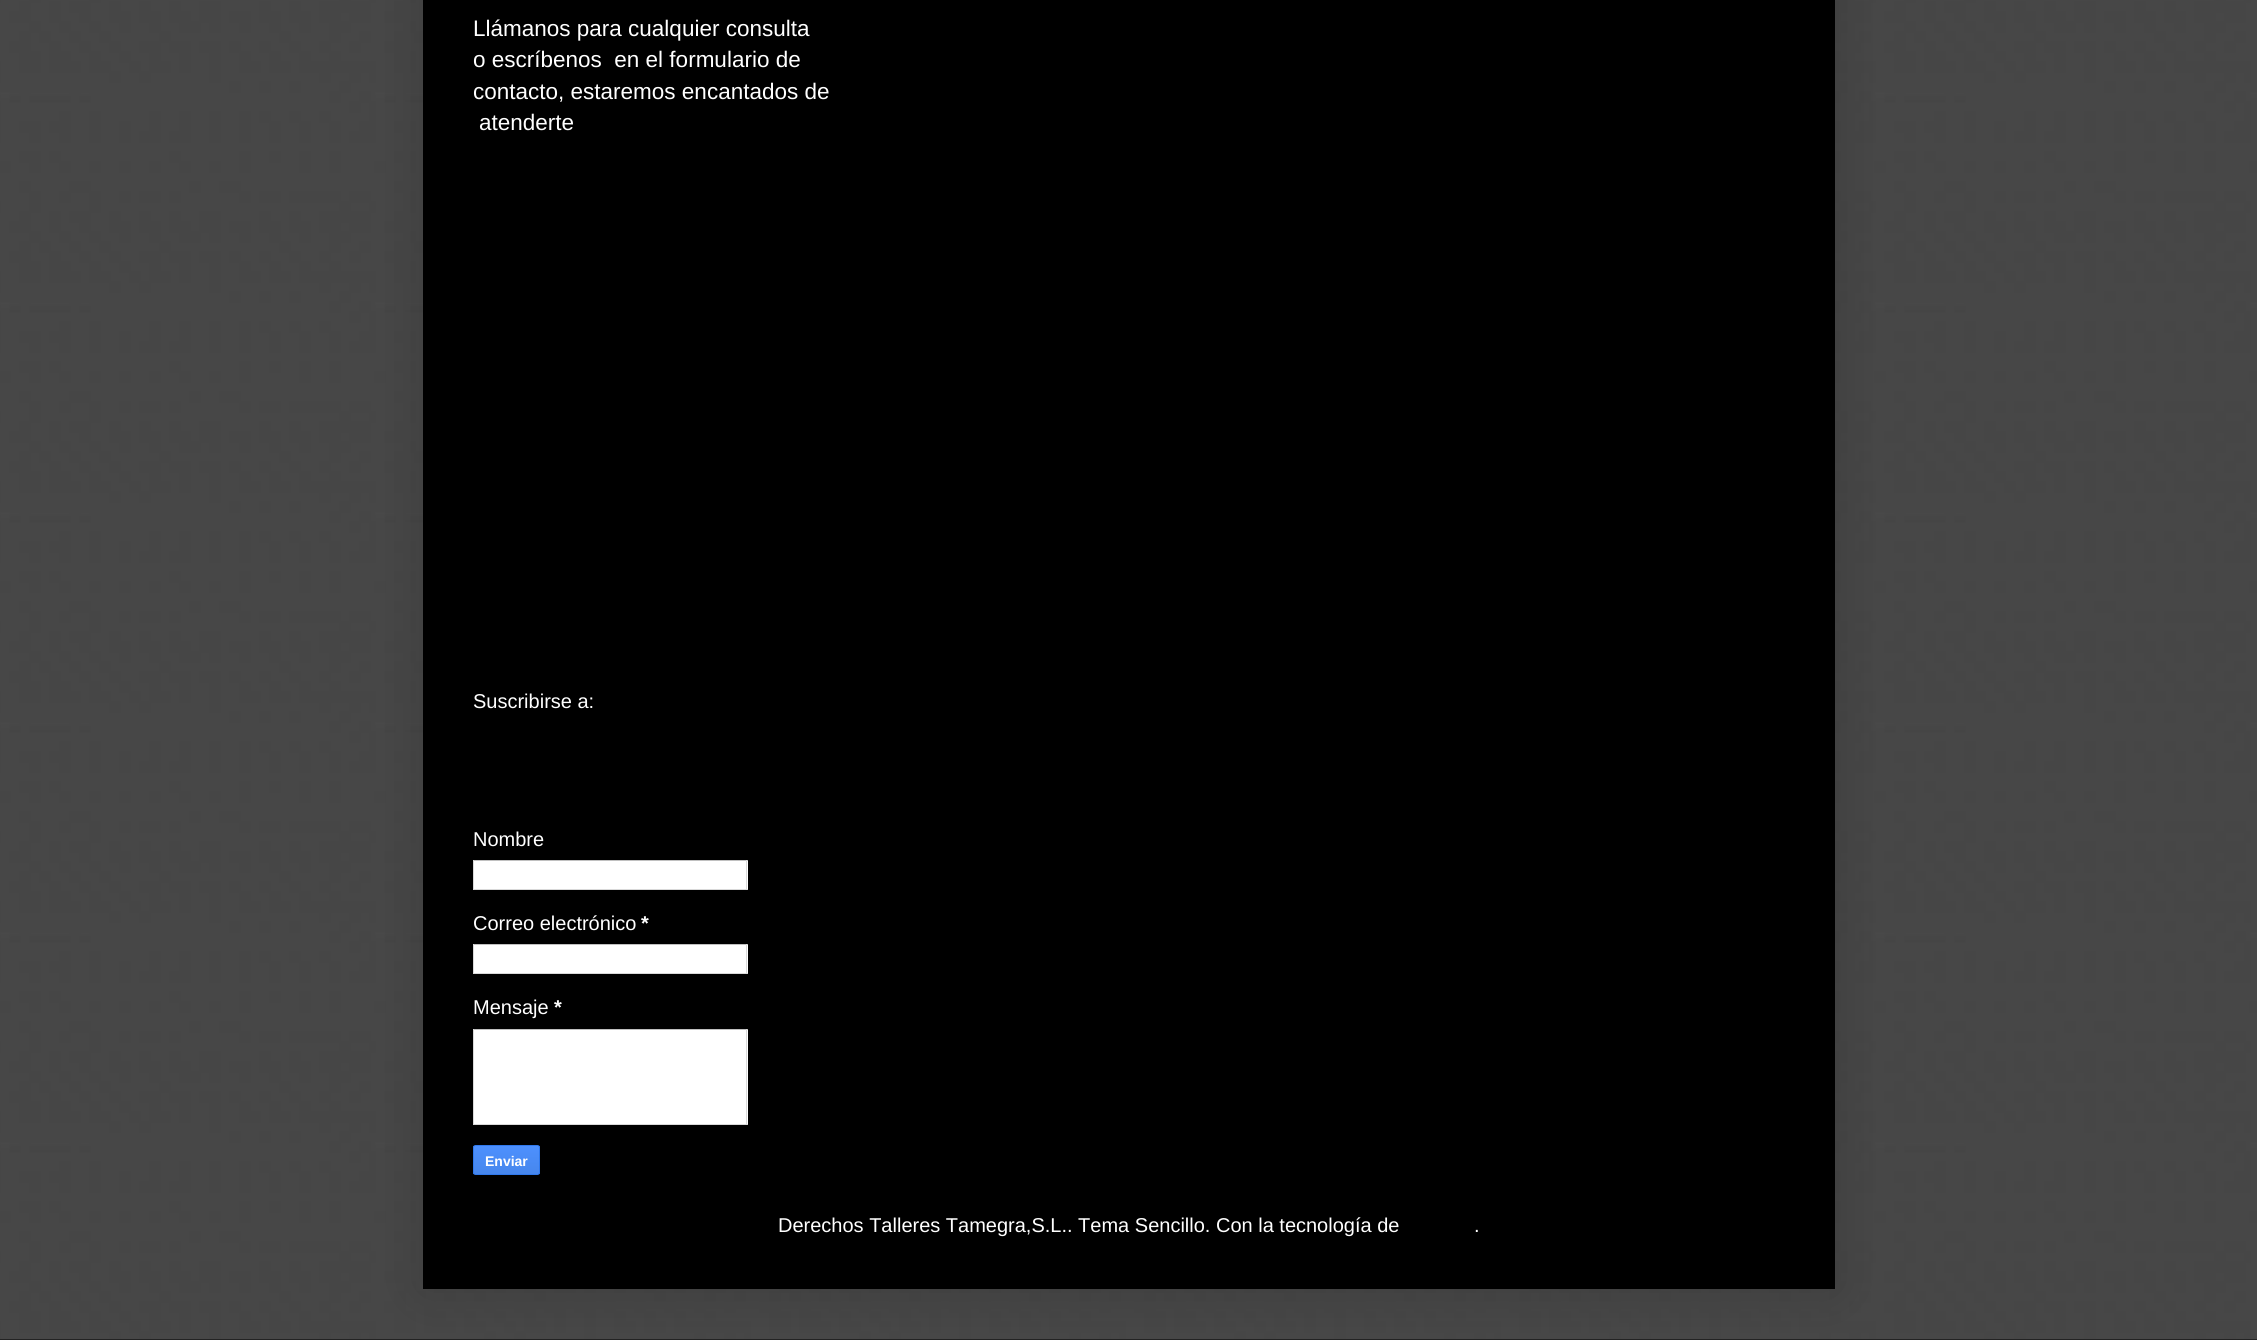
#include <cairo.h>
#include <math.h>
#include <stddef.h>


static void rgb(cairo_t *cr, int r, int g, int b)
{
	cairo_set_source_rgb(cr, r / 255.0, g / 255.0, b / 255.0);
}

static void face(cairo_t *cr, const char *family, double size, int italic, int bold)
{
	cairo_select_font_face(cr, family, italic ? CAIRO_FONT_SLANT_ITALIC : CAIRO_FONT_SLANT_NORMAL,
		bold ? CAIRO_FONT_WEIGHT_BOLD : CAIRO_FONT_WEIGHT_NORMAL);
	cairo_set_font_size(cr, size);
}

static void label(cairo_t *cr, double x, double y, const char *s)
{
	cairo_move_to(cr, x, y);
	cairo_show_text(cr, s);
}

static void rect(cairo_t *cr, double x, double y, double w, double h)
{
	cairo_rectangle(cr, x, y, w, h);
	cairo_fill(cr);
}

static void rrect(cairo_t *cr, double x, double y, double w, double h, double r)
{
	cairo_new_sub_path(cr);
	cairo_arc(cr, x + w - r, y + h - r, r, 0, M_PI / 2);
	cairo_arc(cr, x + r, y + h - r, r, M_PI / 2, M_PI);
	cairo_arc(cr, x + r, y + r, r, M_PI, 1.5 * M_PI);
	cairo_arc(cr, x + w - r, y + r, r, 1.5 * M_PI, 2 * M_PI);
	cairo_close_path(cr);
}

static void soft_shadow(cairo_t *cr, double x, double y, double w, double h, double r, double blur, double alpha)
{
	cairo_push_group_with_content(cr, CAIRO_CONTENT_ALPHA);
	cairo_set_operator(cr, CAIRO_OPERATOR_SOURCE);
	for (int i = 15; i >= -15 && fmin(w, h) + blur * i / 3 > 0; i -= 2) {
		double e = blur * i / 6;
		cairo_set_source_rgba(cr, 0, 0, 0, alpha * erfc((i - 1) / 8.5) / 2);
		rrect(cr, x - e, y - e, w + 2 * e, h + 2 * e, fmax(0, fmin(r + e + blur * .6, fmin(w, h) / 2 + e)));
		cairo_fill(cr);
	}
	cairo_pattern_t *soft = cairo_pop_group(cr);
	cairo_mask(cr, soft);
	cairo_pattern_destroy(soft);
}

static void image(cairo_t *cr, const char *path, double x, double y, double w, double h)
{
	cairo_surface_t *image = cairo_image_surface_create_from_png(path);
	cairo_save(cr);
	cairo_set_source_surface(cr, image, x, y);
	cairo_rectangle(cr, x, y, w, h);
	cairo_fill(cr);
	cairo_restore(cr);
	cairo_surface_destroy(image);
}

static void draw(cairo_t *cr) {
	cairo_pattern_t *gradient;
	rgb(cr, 0, 0, 0);
	cairo_paint(cr);
	image(cr, "image0.png", 0, 0, 2257, 1340);
	soft_shadow(cr, 423, -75, 1412, 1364, 0, 25, 0.15);
	rgb(cr, 0, 0, 0);
	rect(cr, 423, 0, 1412, 1289);
	face(cr, "Liberation Sans", 22.5, 0, 0);
	rgb(cr, 255, 255, 255);
	label(cr, 473, 36, "Llámanos para cualquier consulta");
	label(cr, 473, 67, "o escríbenos  en el formulario de");
	label(cr, 473, 99, "contacto, estaremos encantados de");
	label(cr, 479, 130, "atenderte");
	face(cr, "Liberation Sans", 20, 0, 0);
	label(cr, 473, 708, "Suscribirse a:");
	label(cr, 473, 846, "Nombre");
	rect(cr, 474, 861, 274, 28);
	rgb(cr, 192, 192, 192);
	rect(cr, 473, 860, 275, 1);
	rgb(cr, 217, 217, 217);
	rect(cr, 746, 860, 1, 30);
	rect(cr, 473, 889, 275, 1);
	rect(cr, 473, 860, 1, 30);
	rgb(cr, 255, 255, 255);
	label(cr, 473, 930, "Correo electrónico");
	face(cr, "Liberation Sans", 20, 0, 1);
	label(cr, 641, 930, "*");
	rect(cr, 474, 945, 274, 28);
	rgb(cr, 192, 192, 192);
	rect(cr, 473, 944, 275, 1);
	rgb(cr, 217, 217, 217);
	rect(cr, 746, 944, 1, 30);
	rect(cr, 473, 973, 275, 1);
	rect(cr, 473, 944, 1, 30);
	face(cr, "Liberation Sans", 20, 0, 0);
	rgb(cr, 255, 255, 255);
	label(cr, 473, 1014, "Mensaje");
	face(cr, "Liberation Sans", 20, 0, 1);
	label(cr, 554, 1014, "*");
	rect(cr, 474, 1030, 274, 94);
	rgb(cr, 192, 192, 192);
	rect(cr, 473, 1029, 275, 1);
	rgb(cr, 217, 217, 217);
	rect(cr, 746, 1029, 1, 96);
	rect(cr, 473, 1124, 275, 1);
	rect(cr, 473, 1029, 1, 96);
	cairo_save(cr);
	rrect(cr, 473, 1145, 67, 30, 2.5);
	cairo_clip(cr);
	gradient = cairo_pattern_create_linear(506, 1146, 506, 1174);
	cairo_pattern_add_color_stop_rgba(gradient, 0, 0.302, 0.565, 0.996, 1);
	cairo_pattern_add_color_stop_rgba(gradient, 1, 0.278, 0.529, 0.929, 1);
	cairo_set_source(cr, gradient);
	cairo_pattern_destroy(gradient);
	rect(cr, 473, 1146, 67, 28);
	cairo_restore(cr);
	rrect(cr, 473.5, 1145.5, 66, 29, 2);
	rgb(cr, 48, 121, 237);
	cairo_set_line_width(cr, 1);
	cairo_stroke(cr);
	face(cr, "Liberation Sans", 14, 0, 1);
	rgb(cr, 255, 255, 255);
	label(cr, 485, 1166, "Enviar");
	face(cr, "Liberation Sans", 20, 0, 0);
	label(cr, 778, 1232, "Derechos Talleres Tamegra,S.L.. Tema Sencillo. Con la tecnología de");
	label(cr, 1474, 1232, ".");
}

int main(void) {
	cairo_surface_t *surface = cairo_image_surface_create(CAIRO_FORMAT_RGB24, 2257, 1340);
	cairo_t *cr = cairo_create(surface);
	cairo_font_options_t *options = cairo_font_options_create();
	cairo_font_options_set_hint_metrics(options, CAIRO_HINT_METRICS_OFF);
	cairo_font_options_set_hint_style(options, CAIRO_HINT_STYLE_NONE);
	cairo_set_font_options(cr, options);
	cairo_set_miter_limit(cr, 4);
	draw(cr);
	cairo_surface_write_to_png(surface, "render.png");
	cairo_font_options_destroy(options);
	cairo_destroy(cr);
	cairo_surface_destroy(surface);
	return 0;
}
